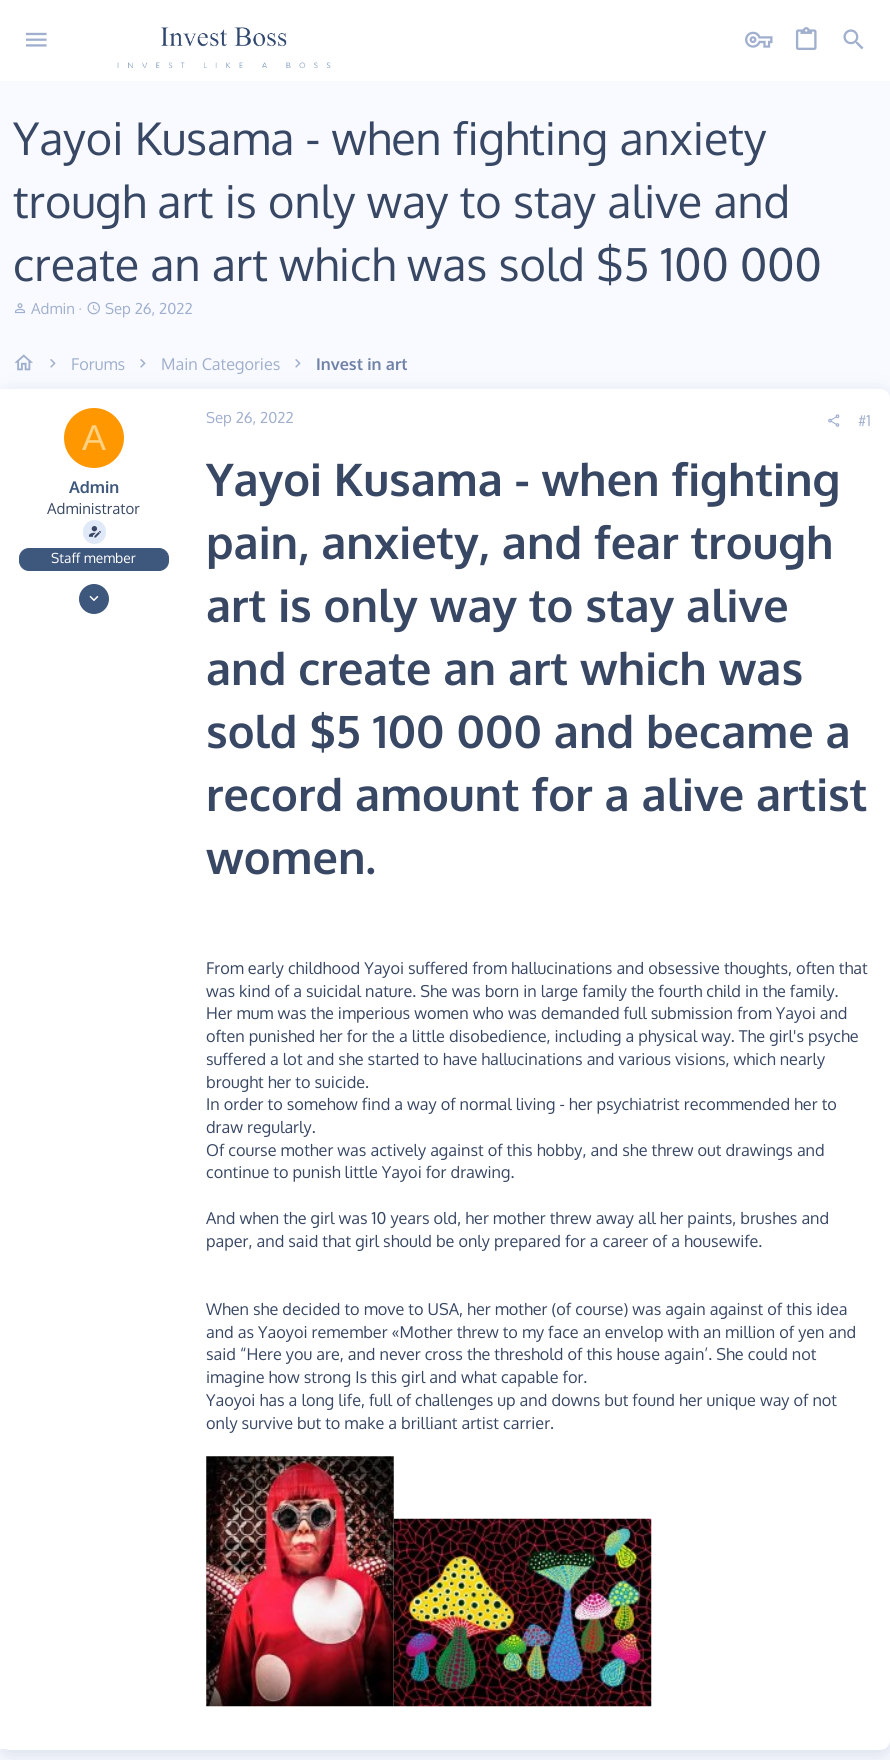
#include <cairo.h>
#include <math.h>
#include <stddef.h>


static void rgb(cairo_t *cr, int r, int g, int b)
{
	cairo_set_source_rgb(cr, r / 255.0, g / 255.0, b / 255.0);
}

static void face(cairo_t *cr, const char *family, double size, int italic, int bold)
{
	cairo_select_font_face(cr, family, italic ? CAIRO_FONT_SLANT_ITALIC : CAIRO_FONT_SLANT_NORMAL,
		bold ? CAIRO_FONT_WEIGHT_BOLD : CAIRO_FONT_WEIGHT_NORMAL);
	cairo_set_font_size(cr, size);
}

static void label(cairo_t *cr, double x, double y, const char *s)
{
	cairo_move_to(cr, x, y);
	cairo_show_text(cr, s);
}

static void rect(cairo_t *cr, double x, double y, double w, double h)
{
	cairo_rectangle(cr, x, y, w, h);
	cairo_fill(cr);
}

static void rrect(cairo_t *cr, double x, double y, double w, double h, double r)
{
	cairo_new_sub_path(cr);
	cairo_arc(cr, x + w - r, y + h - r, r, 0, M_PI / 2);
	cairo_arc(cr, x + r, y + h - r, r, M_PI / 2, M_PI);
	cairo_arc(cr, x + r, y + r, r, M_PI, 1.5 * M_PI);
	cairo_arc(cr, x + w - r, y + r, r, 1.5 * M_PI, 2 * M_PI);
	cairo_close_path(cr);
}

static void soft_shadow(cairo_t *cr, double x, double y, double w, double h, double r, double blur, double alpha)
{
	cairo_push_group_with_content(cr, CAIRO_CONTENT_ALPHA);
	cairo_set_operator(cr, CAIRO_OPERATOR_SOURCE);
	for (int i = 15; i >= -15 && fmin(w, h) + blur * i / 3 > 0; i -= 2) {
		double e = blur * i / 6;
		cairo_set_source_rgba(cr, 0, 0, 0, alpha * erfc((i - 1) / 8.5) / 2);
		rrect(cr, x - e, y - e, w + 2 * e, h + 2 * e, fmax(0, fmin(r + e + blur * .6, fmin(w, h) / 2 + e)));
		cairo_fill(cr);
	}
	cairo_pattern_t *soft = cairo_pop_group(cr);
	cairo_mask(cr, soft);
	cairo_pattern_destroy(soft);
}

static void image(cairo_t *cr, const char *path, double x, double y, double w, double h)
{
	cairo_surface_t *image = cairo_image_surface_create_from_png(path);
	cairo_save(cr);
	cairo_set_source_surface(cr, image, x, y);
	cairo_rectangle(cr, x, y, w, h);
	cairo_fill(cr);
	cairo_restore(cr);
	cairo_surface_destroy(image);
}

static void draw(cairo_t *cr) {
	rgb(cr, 248, 250, 255);
	cairo_paint(cr);
	rgb(cr, 255, 255, 255);
	rect(cr, 0, 0, 890, 81);
	image(cr, "image0.png", 25, 32, 22, 15);
	image(cr, "image1.png", 117, 27, 214, 42);
	image(cr, "image2.png", 745, 31, 28, 17);
	image(cr, "image3.png", 795, 27, 22, 23);
	image(cr, "image4.png", 843, 29, 21, 21);
	face(cr, "Oxygen", 45, 0, 0);
	rgb(cr, 56, 71, 100);
	label(cr, 13, 155, "Yayoi Kusama - when fighting anxiety");
	label(cr, 13, 218, "trough art is only way to stay alive and");
	label(cr, 13, 281, "create an art which was sold $5 100 000");
	image(cr, "image5.png", 15, 303, 10, 11);
	face(cr, "Oxygen", 15, 0, 0);
	rgb(cr, 160, 175, 206);
	label(cr, 31, 314, "Admin ·");
	image(cr, "image6.png", 87, 301, 13, 14);
	label(cr, 105, 314, "Sep 26, 2022");
	image(cr, "image8.png", 50, 359, 6, 9);
	image(cr, "image8.png", 140, 359, 6, 9);
	image(cr, "image8.png", 295, 359, 6, 9);
	rgb(cr, 88, 106, 153);
	soft_shadow(cr, 0, 394, 890, 1361, 10, 9.5, 0.2);
	image(cr, "image7.png", 14, 354, 19, 17);
	face(cr, "Oxygen", 16.25, 0, 0);
	rgb(cr, 160, 175, 206);
	label(cr, 71, 370, "Forums");
	label(cr, 161, 370, "Main Categories");
	face(cr, "Oxygen", 16.25, 0, 1);
	rgb(cr, 112, 130, 167);
	label(cr, 316, 370, "Invest in art");
	rgb(cr, 255, 255, 255);
	rrect(cr, 0, 389, 890, 1361, 10);
	cairo_fill(cr);
	rect(cr, 0, 389, 8, 1360);
	rgb(cr, 255, 152, 0);
	cairo_arc(cr, 94, 438, 30, 0, 2 * M_PI);
	cairo_fill(cr);
	face(cr, "Liberation Sans", 36, 0, 0);
	rgb(cr, 255, 209, 128);
	label(cr, 82, 450, "A");
	face(cr, "Oxygen", 16.25, 0, 1);
	rgb(cr, 62, 87, 125);
	label(cr, 69, 493, "Admin");
	face(cr, "Oxygen", 15, 0, 0);
	rgb(cr, 56, 71, 100);
	label(cr, 47, 514, "Administrator");
	rgb(cr, 223, 233, 248);
	rrect(cr, 83, 520, 23, 24, 11.5);
	cairo_fill(cr);
	image(cr, "image9.png", 88, 526, 13, 12);
	rgb(cr, 62, 87, 125);
	rrect(cr, 19.5, 548.5, 149, 22, 9.5);
	cairo_fill_preserve(cr);
	cairo_set_line_width(cr, 1);
	cairo_stroke(cr);
	face(cr, "Oxygen", 13.75, 0, 0);
	rgb(cr, 255, 255, 255);
	label(cr, 51, 563, "Staff member");
	rgb(cr, 62, 87, 125);
	cairo_new_path(cr);
	cairo_arc(cr, 94, 599, 15, 0, 2 * M_PI);
	cairo_fill(cr);
	image(cr, "image10.png", 89, 595, 10, 7);
	face(cr, "Oxygen", 15, 0, 0);
	rgb(cr, 160, 175, 206);
	label(cr, 206, 423, "Sep 26, 2022");
	image(cr, "image11.png", 828, 414, 12, 13);
	label(cr, 858, 426, "#1");
	face(cr, "Oxygen", 45, 0, 1);
	rgb(cr, 56, 71, 100);
	label(cr, 206, 496, "Yayoi Kusama - when fighting");
	label(cr, 206, 559, "pain, anxiety, and fear trough");
	label(cr, 206, 622, "art is only way to stay alive");
	label(cr, 206, 685, "and create an art which was");
	label(cr, 206, 748, "sold $5 100 000 and became a");
	label(cr, 206, 811, "record amount for a alive artist");
	label(cr, 206, 874, "women.");
	face(cr, "Oxygen", 16.25, 0, 0);
	label(cr, 206, 974, "From early childhood Yayoi suffered from hallucinations and obsessive thoughts, often that");
	label(cr, 206, 997, "was kind of a suicidal nature. She was born in large family the fourth child in the family.");
	label(cr, 206, 1019, "Her mum was the imperious women who was demanded full submission from Yayoi and");
	label(cr, 206, 1042, "often punished her for the a little disobedience, including a physical way. The girl's psyche");
	label(cr, 206, 1065, "suffered a lot and she started to have hallucinations and various visions, which nearly");
	label(cr, 206, 1088, "brought her to suicide.");
	label(cr, 206, 1110, "In order to somehow find a way of normal living - her psychiatrist recommended her to");
	label(cr, 206, 1133, "draw regularly.");
	label(cr, 206, 1156, "Of course mother was actively against of this hobby, and she threw out drawings and");
	label(cr, 206, 1178, "continue to punish little Yayoi for drawing.");
	label(cr, 206, 1224, "And when the girl was 10 years old, her mother threw away all her paints, brushes and");
	label(cr, 206, 1247, "paper, and said that girl should be only prepared for a career of a housewife.");
	label(cr, 206, 1315, "When she decided to move to USA, her mother (of course) was again against of this idea");
	label(cr, 206, 1338, "and as Yaoyoi remember «Mother threw to my face an envelop with an million of yen and");
	label(cr, 206, 1360, "said “Here you are, and never cross the threshold of this house again’. She could not");
	label(cr, 206, 1383, "imagine how strong Is this girl and what capable for.");
	label(cr, 206, 1406, "Yaoyoi has a long life, full of challenges up and downs but found her unique way of not");
	label(cr, 206, 1429, "only survive but to make a brilliant artist carrier.");
	image(cr, "image12.png", 206, 1456, 188, 251);
	image(cr, "image13.png", 393, 1518, 259, 189);
}

int main(void) {
	cairo_surface_t *surface = cairo_image_surface_create(CAIRO_FORMAT_RGB24, 890, 1760);
	cairo_t *cr = cairo_create(surface);
	cairo_font_options_t *options = cairo_font_options_create();
	cairo_font_options_set_hint_metrics(options, CAIRO_HINT_METRICS_OFF);
	cairo_font_options_set_hint_style(options, CAIRO_HINT_STYLE_NONE);
	cairo_set_font_options(cr, options);
	cairo_set_miter_limit(cr, 4);
	draw(cr);
	cairo_surface_write_to_png(surface, "render.png");
	cairo_font_options_destroy(options);
	cairo_destroy(cr);
	cairo_surface_destroy(surface);
	return 0;
}
